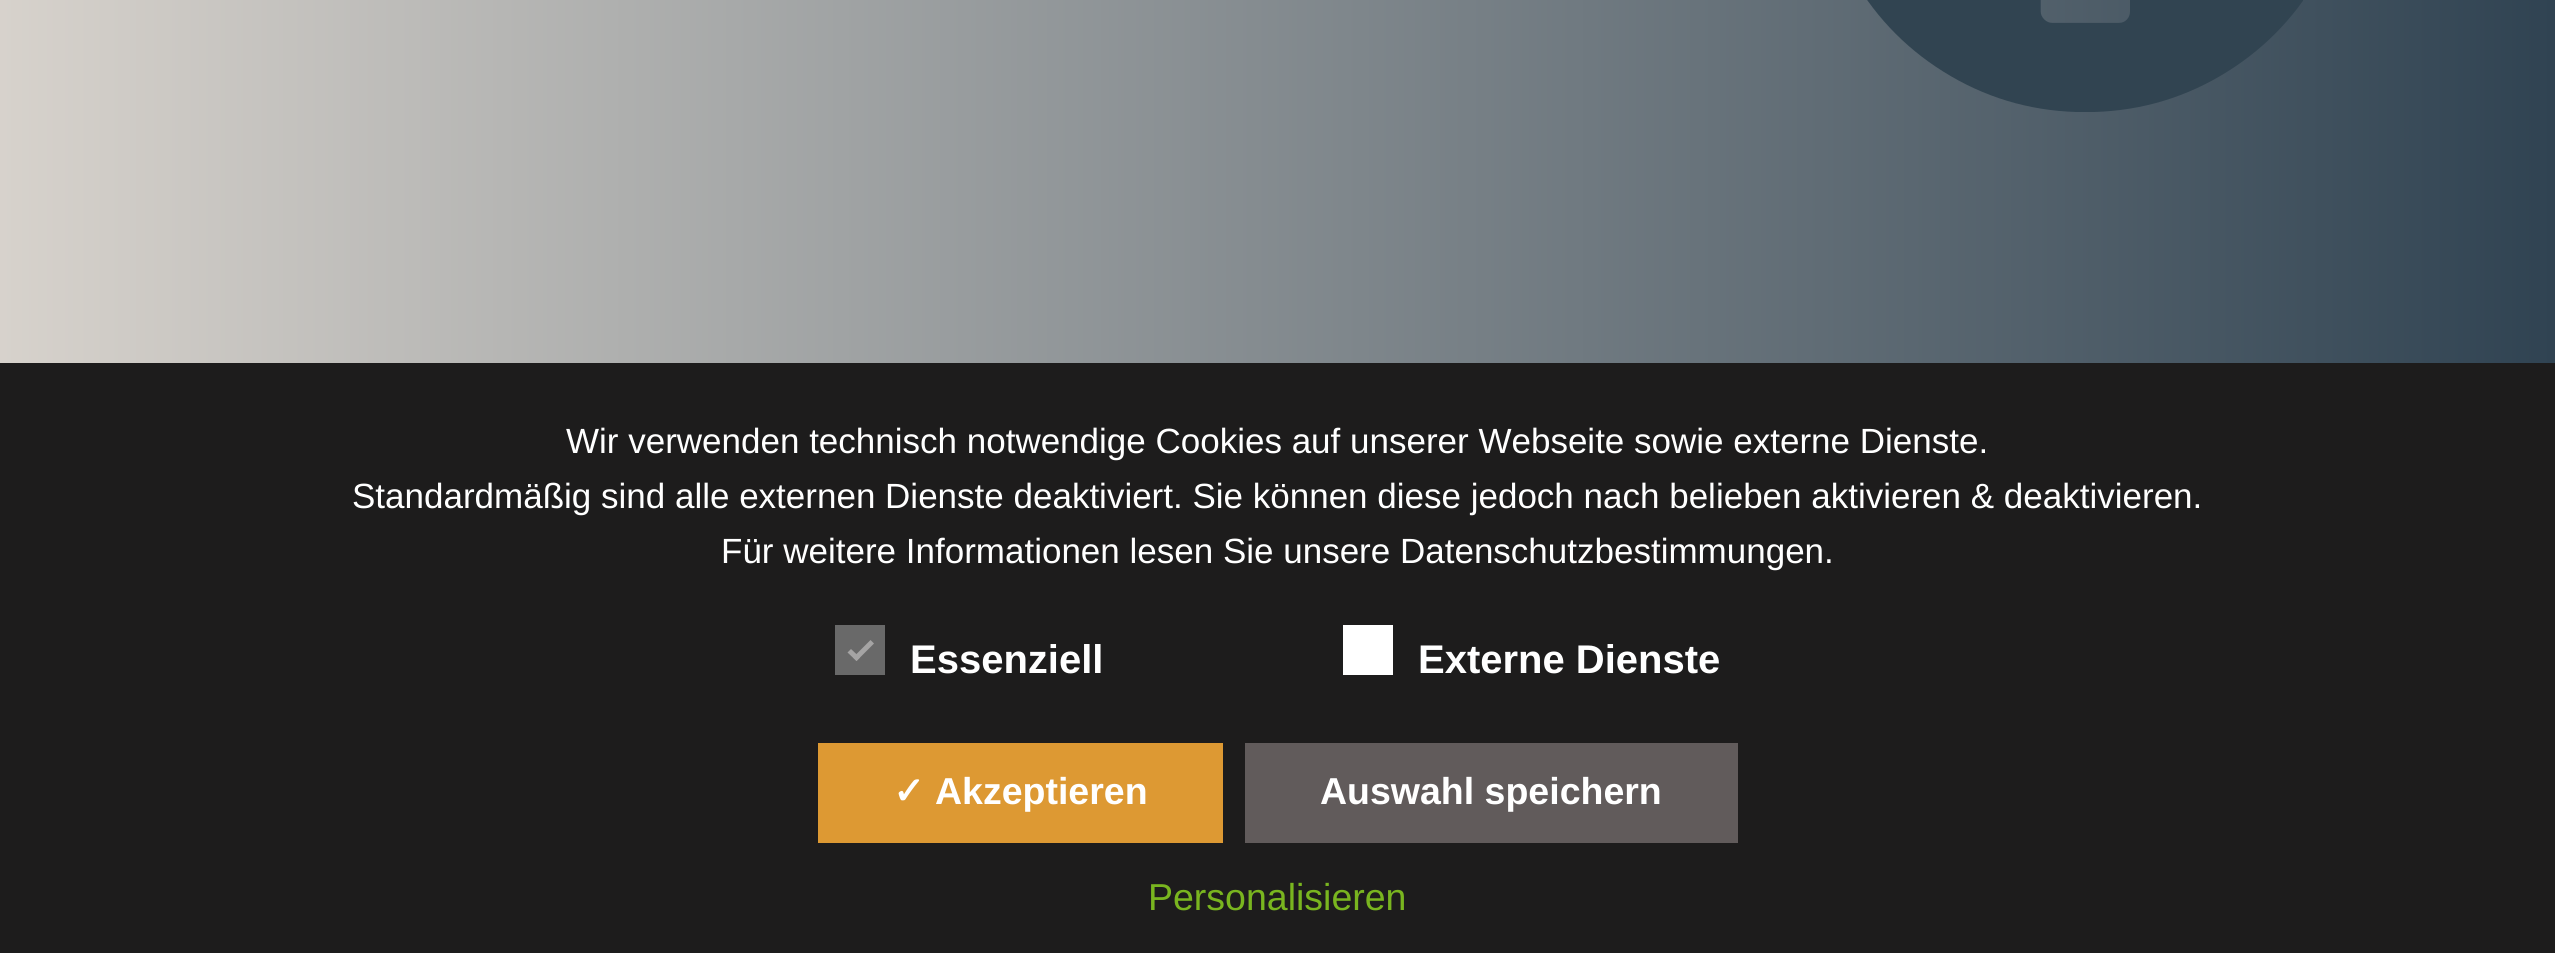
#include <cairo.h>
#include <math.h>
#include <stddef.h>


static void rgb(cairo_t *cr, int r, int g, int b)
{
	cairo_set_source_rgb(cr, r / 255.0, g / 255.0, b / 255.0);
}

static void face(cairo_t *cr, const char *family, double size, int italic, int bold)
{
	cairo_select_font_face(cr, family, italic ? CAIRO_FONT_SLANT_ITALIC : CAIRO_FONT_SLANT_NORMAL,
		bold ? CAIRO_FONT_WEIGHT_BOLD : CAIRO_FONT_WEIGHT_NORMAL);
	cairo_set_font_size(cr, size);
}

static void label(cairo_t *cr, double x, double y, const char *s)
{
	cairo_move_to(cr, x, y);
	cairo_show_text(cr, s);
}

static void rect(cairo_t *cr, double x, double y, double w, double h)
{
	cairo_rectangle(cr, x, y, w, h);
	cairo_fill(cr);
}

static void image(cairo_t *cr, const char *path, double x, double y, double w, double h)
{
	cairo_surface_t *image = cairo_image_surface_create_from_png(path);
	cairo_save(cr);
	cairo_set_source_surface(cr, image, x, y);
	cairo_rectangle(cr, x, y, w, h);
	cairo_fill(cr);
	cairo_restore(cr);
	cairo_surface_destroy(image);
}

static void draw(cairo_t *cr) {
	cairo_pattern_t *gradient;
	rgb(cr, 255, 255, 255);
	cairo_paint(cr);
	gradient = cairo_pattern_create_linear(0, 85, 2555, 85);
	cairo_pattern_add_color_stop_rgba(gradient, 0, 0.843, 0.824, 0.8, 1);
	cairo_pattern_add_color_stop_rgba(gradient, 1, 0.188, 0.263, 0.322, 1);
	cairo_set_source(cr, gradient);
	cairo_pattern_destroy(gradient);
	rect(cr, 0, 0, 2555, 363);
	image(cr, "image0.png", 1867, 0, 436, 112);
	rgb(cr, 29, 28, 28);
	rect(cr, 0, 363, 2555, 590);
	face(cr, "Liberation Sans", 35, 0, 0);
	rgb(cr, 255, 255, 255);
	label(cr, 566, 453, "Wir verwenden technisch notwendige Cookies auf unserer Webseite sowie externe Dienste.");
	label(cr, 352, 508, "Standardmäßig sind alle externen Dienste deaktiviert. Sie können diese jedoch nach belieben aktivieren & deaktivieren.");
	label(cr, 721, 563, "Für weitere Informationen lesen Sie unsere Datenschutzbestimmungen.");
	rgb(cr, 105, 105, 105);
	rect(cr, 835, 625, 50, 50);
	rgb(cr, 165, 164, 164);
	cairo_new_path(cr);
	cairo_move_to(cr, 870.5, 640);
	cairo_line_to(cr, 874, 643.5);
	cairo_line_to(cr, 856.5, 661);
	cairo_line_to(cr, 853, 657.5);
	cairo_close_path(cr);
	cairo_fill(cr);
	cairo_new_path(cr);
	cairo_move_to(cr, 851, 649);
	cairo_line_to(cr, 860, 657.5);
	cairo_line_to(cr, 856.5, 661);
	cairo_line_to(cr, 847.5, 652.5);
	cairo_close_path(cr);
	cairo_fill(cr);
	face(cr, "Liberation Sans", 40, 0, 1);
	rgb(cr, 255, 255, 255);
	label(cr, 910, 673, "Essenziell");
	rect(cr, 1343, 625, 50, 50);
	label(cr, 1418, 673, "Externe Dienste");
	rgb(cr, 221, 153, 51);
	rect(cr, 818, 743, 405, 100);
	face(cr, "DejaVu Sans", 37.5, 0, 1);
	rgb(cr, 255, 255, 255);
	label(cr, 893, 804, "✓");
	face(cr, "Liberation Sans", 37.5, 0, 1);
	label(cr, 935, 804, "Akzeptieren");
	rgb(cr, 97, 91, 91);
	rect(cr, 1245, 743, 493, 100);
	rgb(cr, 255, 255, 255);
	label(cr, 1320, 804, "Auswahl speichern");
	face(cr, "Liberation Sans", 37.5, 0, 0);
	rgb(cr, 121, 181, 31);
	label(cr, 1148, 910, "Personalisieren");
}

int main(void) {
	cairo_surface_t *surface = cairo_image_surface_create(CAIRO_FORMAT_RGB24, 2555, 953);
	cairo_t *cr = cairo_create(surface);
	cairo_font_options_t *options = cairo_font_options_create();
	cairo_font_options_set_hint_metrics(options, CAIRO_HINT_METRICS_OFF);
	cairo_font_options_set_hint_style(options, CAIRO_HINT_STYLE_NONE);
	cairo_set_font_options(cr, options);
	cairo_set_miter_limit(cr, 4);
	draw(cr);
	cairo_surface_write_to_png(surface, "render.png");
	cairo_font_options_destroy(options);
	cairo_destroy(cr);
	cairo_surface_destroy(surface);
	return 0;
}
